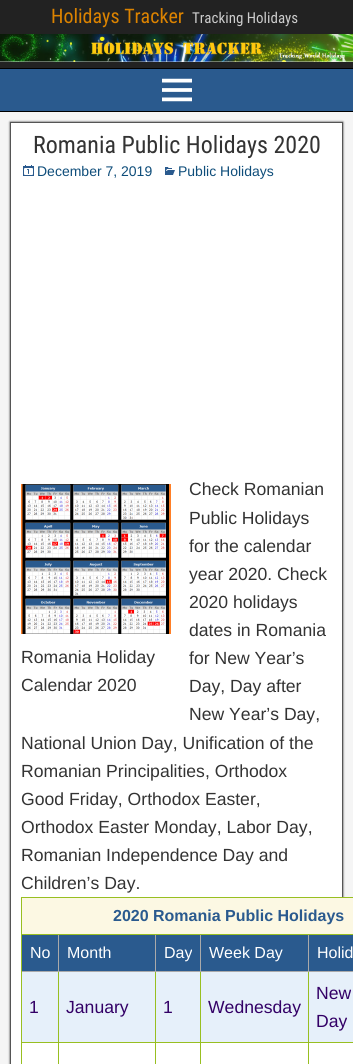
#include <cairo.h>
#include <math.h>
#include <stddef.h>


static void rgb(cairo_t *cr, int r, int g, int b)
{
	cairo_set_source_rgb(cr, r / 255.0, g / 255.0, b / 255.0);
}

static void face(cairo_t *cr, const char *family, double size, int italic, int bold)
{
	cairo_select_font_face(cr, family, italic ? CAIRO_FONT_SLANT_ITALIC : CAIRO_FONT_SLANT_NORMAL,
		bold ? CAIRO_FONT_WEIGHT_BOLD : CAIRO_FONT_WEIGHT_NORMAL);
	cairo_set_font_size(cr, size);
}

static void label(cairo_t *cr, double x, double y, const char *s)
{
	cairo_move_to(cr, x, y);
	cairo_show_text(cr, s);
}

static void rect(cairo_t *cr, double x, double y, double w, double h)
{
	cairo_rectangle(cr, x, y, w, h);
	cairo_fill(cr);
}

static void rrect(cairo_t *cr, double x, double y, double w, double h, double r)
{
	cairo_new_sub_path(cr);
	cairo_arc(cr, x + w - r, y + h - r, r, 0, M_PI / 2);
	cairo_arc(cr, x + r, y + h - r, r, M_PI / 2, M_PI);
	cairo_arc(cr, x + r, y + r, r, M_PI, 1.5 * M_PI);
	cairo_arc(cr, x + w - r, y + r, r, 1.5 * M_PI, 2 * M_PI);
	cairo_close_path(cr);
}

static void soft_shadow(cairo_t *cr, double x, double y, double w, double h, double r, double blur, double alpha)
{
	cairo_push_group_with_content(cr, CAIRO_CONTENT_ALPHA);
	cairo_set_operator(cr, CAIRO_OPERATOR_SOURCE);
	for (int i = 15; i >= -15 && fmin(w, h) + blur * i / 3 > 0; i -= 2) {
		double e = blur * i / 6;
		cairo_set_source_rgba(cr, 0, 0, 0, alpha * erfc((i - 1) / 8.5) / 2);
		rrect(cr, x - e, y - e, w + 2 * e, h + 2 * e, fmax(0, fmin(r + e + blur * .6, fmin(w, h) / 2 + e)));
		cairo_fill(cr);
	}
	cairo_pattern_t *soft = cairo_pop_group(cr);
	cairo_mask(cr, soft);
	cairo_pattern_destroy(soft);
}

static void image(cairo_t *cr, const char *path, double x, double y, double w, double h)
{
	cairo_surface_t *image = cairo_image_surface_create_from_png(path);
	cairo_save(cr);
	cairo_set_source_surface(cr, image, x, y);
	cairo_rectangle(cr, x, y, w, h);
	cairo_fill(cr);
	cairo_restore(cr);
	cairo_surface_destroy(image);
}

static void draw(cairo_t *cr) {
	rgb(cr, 34, 34, 34);
	cairo_paint(cr);
	face(cr, "Roboto Condensed", 20, 0, 0);
	rgb(cr, 220, 131, 0);
	label(cr, 51, 23, "Holidays Tracker");
	face(cr, "Roboto Condensed", 15, 0, 0);
	rgb(cr, 204, 204, 204);
	label(cr, 192, 23, "Tracking Holidays");
	rgb(cr, 0, 0, 0);
	rect(cr, 0, 68, 353, 1);
	image(cr, "image0.png", 0, 34, 353, 28);
	rgb(cr, 42, 90, 142);
	rect(cr, 0, 69, 353, 42);
	rgb(cr, 0, 0, 0);
	rect(cr, 0, 111, 353, 1);
	image(cr, "image1.png", 162, 78, 30, 24);
	rgb(cr, 245, 245, 245);
	rect(cr, 0, 112, 353, 952);
	rgb(cr, 51, 51, 51);
	soft_shadow(cr, 10, 122, 333, 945, 0, 1, 1);
	rgb(cr, 255, 255, 255);
	cairo_rectangle(cr, 10.5, 122.5, 332, 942);
	cairo_fill_preserve(cr);
	rgb(cr, 85, 85, 85);
	cairo_set_line_width(cr, 1);
	cairo_stroke(cr);
	face(cr, "Roboto Condensed", 24, 0, 0);
	rgb(cr, 51, 51, 51);
	label(cr, 33, 153, "Romania Public Holidays 2020");
	image(cr, "image2.png", 23, 165, 11, 11);
	face(cr, "Liberation Sans", 14, 0, 0);
	rgb(cr, 14, 77, 122);
	label(cr, 37, 176, "December 7, 2019");
	image(cr, "image3.png", 165, 167, 10, 8);
	label(cr, 178, 176, "Public Holidays");
	face(cr, "Liberation Sans", 17.6, 0, 0);
	rgb(cr, 51, 51, 51);
	label(cr, 189, 495, "Check Romanian");
	label(cr, 189, 524, "Public Holidays");
	label(cr, 189, 552, "for the calendar");
	label(cr, 189, 580, "year 2020. Check");
	label(cr, 189, 608, "2020 holidays");
	label(cr, 189, 636, "dates in Romania");
	image(cr, "image4.png", 21, 484, 150, 150);
	label(cr, 21, 663, "Romania Holiday");
	label(cr, 21, 691, "Calendar 2020");
	label(cr, 189, 664, "for New Year’s");
	label(cr, 189, 692, "Day, Day after");
	label(cr, 189, 720, "New Year’s Day,");
	label(cr, 21, 749, "National Union Day, Unification of the");
	label(cr, 21, 777, "Romanian Principalities, Orthodox");
	label(cr, 21, 805, "Good Friday, Orthodox Easter,");
	label(cr, 21, 833, "Orthodox Easter Monday, Labor Day,");
	label(cr, 21, 861, "Romanian Independence Day and");
	label(cr, 21, 889, "Children’s Day.");
	rgb(cr, 255, 255, 255);
	rect(cr, 342, 1043, 11, 21);
	rgb(cr, 152, 191, 33);
	rect(cr, 21, 897, 332, 1);
	rect(cr, 21, 897, 1, 38);
	rgb(cr, 252, 248, 227);
	rect(cr, 22, 898, 331, 36);
	rgb(cr, 152, 191, 33);
	rect(cr, 21, 1042, 332, 1);
	rect(cr, 308, 971, 1, 93);
	rgb(cr, 170, 170, 170);
	rect(cr, 308, 971, 45, 1);
	rect(cr, 308, 934, 1, 38);
	rgb(cr, 152, 191, 33);
	rect(cr, 200, 971, 1, 93);
	rgb(cr, 170, 170, 170);
	rect(cr, 200, 971, 109, 1);
	rect(cr, 200, 934, 1, 38);
	rgb(cr, 152, 191, 33);
	rect(cr, 155, 971, 1, 93);
	rgb(cr, 170, 170, 170);
	rect(cr, 155, 971, 46, 1);
	rect(cr, 155, 934, 1, 38);
	rgb(cr, 152, 191, 33);
	rect(cr, 58, 971, 1, 93);
	rgb(cr, 170, 170, 170);
	rect(cr, 58, 971, 98, 1);
	rect(cr, 58, 934, 1, 38);
	rgb(cr, 152, 191, 33);
	rect(cr, 21, 971, 1, 93);
	rgb(cr, 170, 170, 170);
	rect(cr, 21, 971, 38, 1);
	rgb(cr, 152, 191, 33);
	rect(cr, 21, 934, 1, 38);
	rect(cr, 21, 934, 332, 1);
	face(cr, "Liberation Sans", 16, 0, 1);
	rgb(cr, 42, 90, 142);
	label(cr, 113, 921, "2020 Romania Public Holidays");
	rect(cr, 22, 935, 36, 36);
	face(cr, "Liberation Sans", 16, 0, 0);
	rgb(cr, 255, 255, 255);
	label(cr, 30, 958, "No");
	rgb(cr, 42, 90, 142);
	rect(cr, 59, 935, 96, 36);
	rgb(cr, 255, 255, 255);
	label(cr, 67, 958, "Month");
	rgb(cr, 42, 90, 142);
	rect(cr, 156, 935, 44, 36);
	rgb(cr, 255, 255, 255);
	label(cr, 164, 958, "Day");
	rgb(cr, 42, 90, 142);
	rect(cr, 201, 935, 107, 36);
	rgb(cr, 255, 255, 255);
	label(cr, 209, 958, "Week Day");
	rgb(cr, 42, 90, 142);
	rect(cr, 309, 935, 44, 36);
	rgb(cr, 255, 255, 255);
	label(cr, 317, 958, "Holid");
	rgb(cr, 230, 240, 250);
	rect(cr, 22, 972, 36, 70);
	face(cr, "Liberation Sans", 17.6, 0, 0);
	rgb(cr, 51, 0, 102);
	label(cr, 29, 1013, "1");
	rgb(cr, 230, 240, 250);
	rect(cr, 59, 972, 96, 70);
	rgb(cr, 51, 0, 102);
	label(cr, 66, 1013, "January");
	rgb(cr, 230, 240, 250);
	rect(cr, 156, 972, 44, 70);
	rgb(cr, 51, 0, 102);
	label(cr, 163, 1013, "1");
	rgb(cr, 230, 240, 250);
	rect(cr, 201, 972, 107, 70);
	rgb(cr, 51, 0, 102);
	label(cr, 208, 1013, "Wednesday");
	rgb(cr, 230, 240, 250);
	rect(cr, 309, 972, 44, 70);
	rgb(cr, 51, 0, 102);
	label(cr, 316, 999, "New");
	label(cr, 316, 1027, "Day");
}

int main(void) {
	cairo_surface_t *surface = cairo_image_surface_create(CAIRO_FORMAT_RGB24, 353, 1064);
	cairo_t *cr = cairo_create(surface);
	cairo_font_options_t *options = cairo_font_options_create();
	cairo_font_options_set_hint_metrics(options, CAIRO_HINT_METRICS_OFF);
	cairo_font_options_set_hint_style(options, CAIRO_HINT_STYLE_NONE);
	cairo_set_font_options(cr, options);
	cairo_set_miter_limit(cr, 4);
	draw(cr);
	cairo_surface_write_to_png(surface, "render.png");
	cairo_font_options_destroy(options);
	cairo_destroy(cr);
	cairo_surface_destroy(surface);
	return 0;
}
